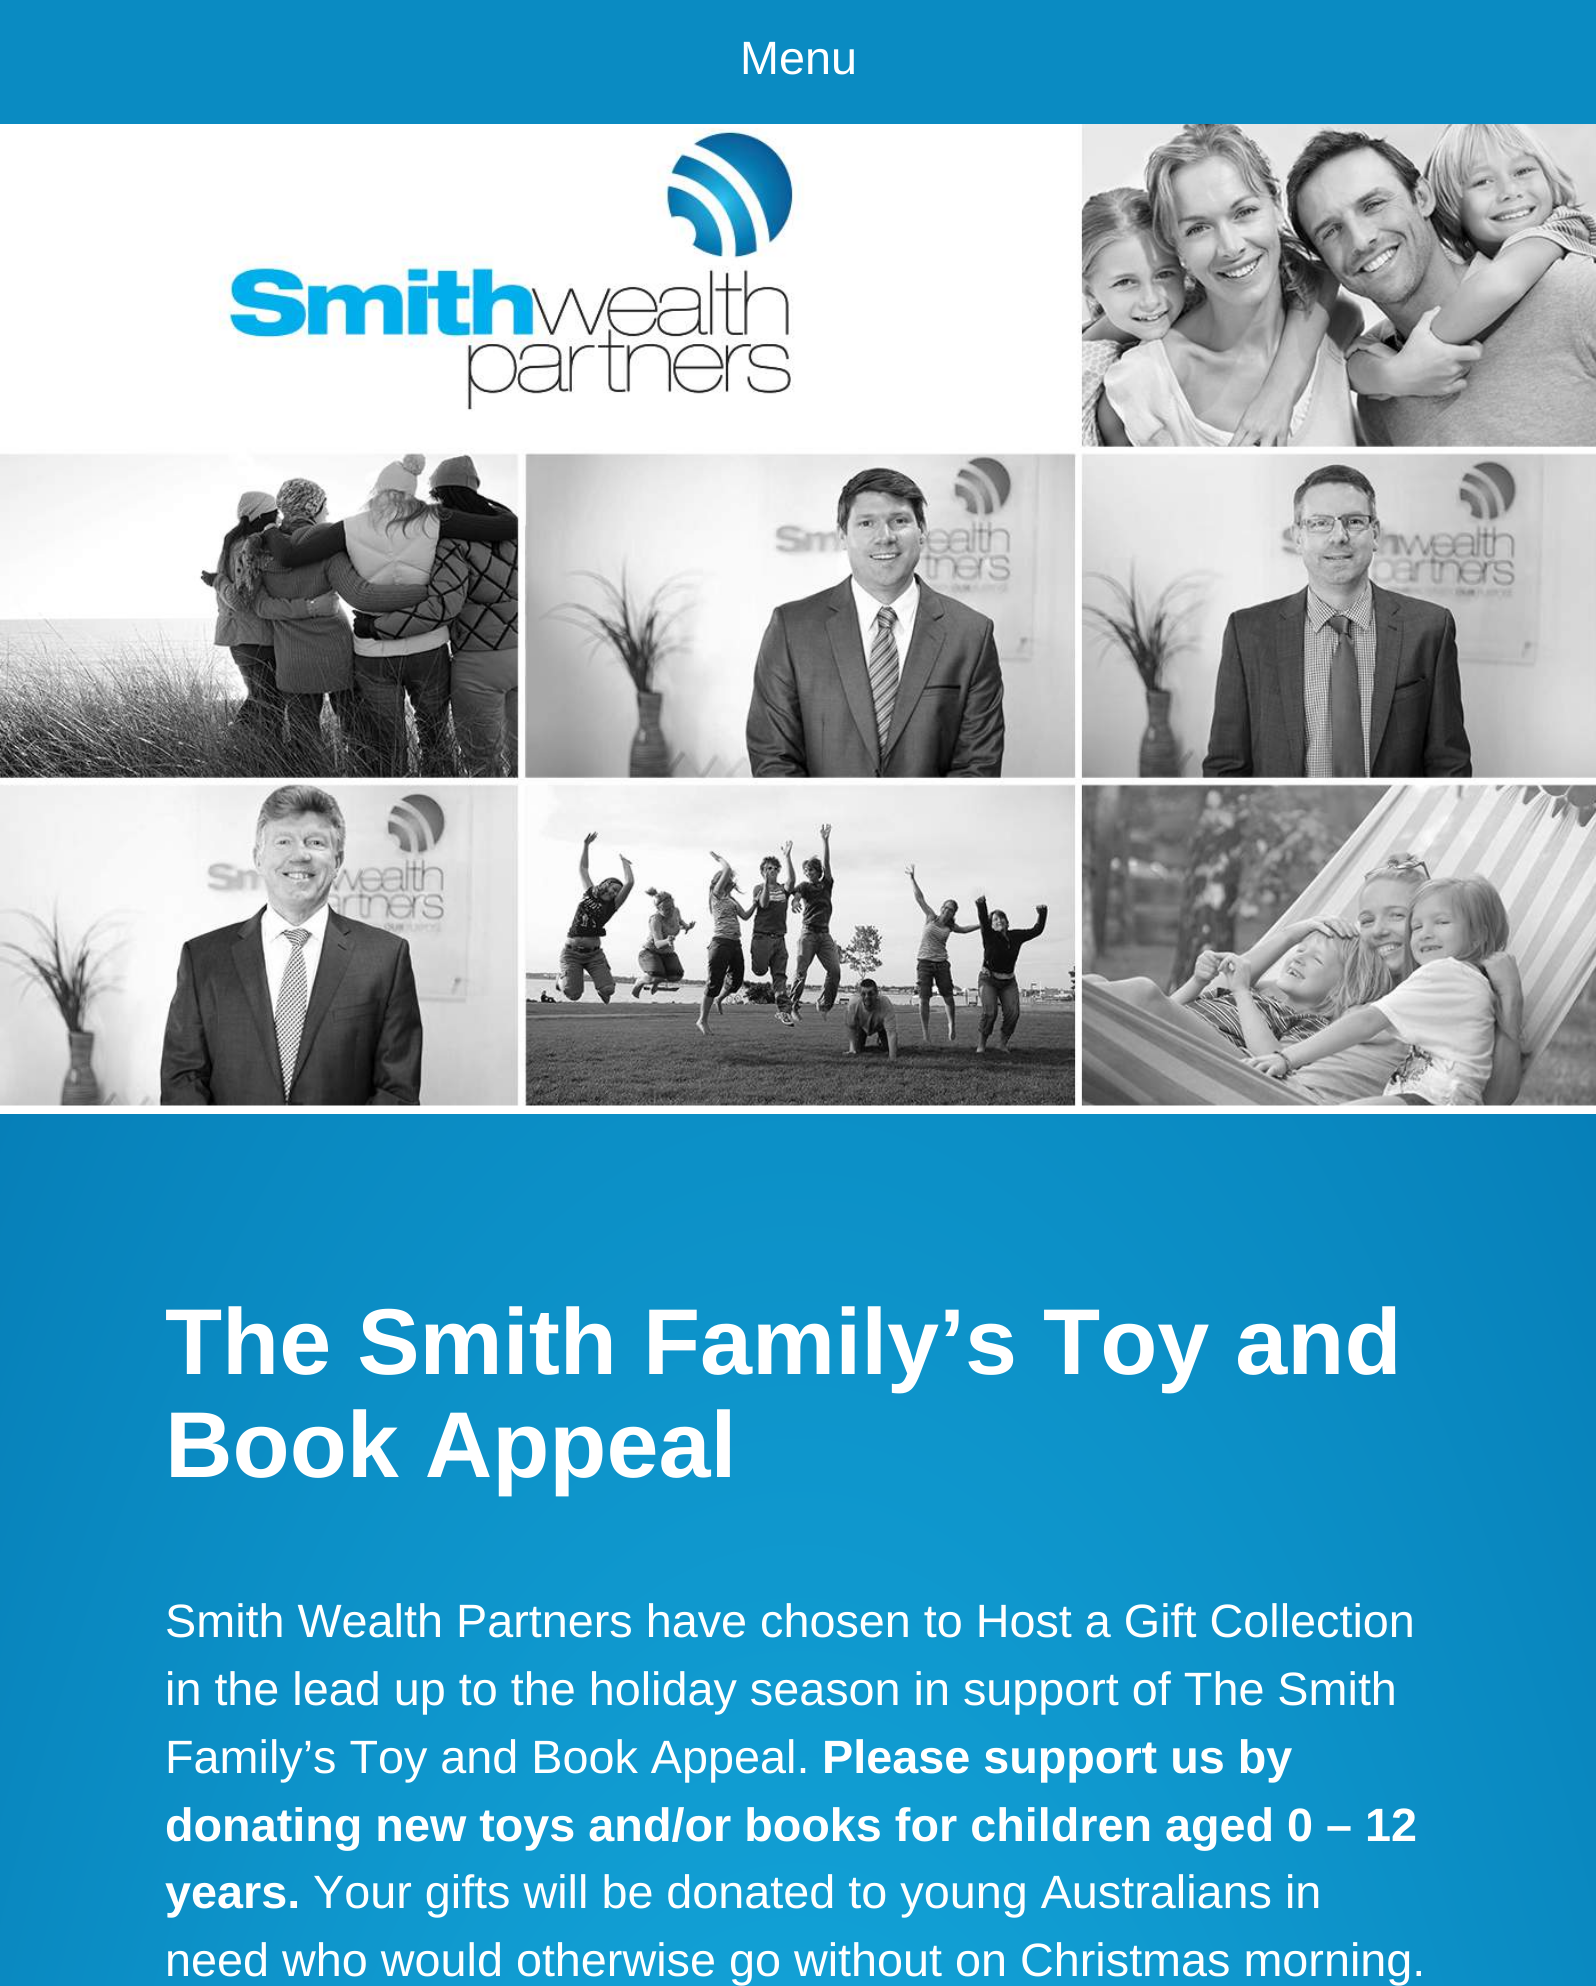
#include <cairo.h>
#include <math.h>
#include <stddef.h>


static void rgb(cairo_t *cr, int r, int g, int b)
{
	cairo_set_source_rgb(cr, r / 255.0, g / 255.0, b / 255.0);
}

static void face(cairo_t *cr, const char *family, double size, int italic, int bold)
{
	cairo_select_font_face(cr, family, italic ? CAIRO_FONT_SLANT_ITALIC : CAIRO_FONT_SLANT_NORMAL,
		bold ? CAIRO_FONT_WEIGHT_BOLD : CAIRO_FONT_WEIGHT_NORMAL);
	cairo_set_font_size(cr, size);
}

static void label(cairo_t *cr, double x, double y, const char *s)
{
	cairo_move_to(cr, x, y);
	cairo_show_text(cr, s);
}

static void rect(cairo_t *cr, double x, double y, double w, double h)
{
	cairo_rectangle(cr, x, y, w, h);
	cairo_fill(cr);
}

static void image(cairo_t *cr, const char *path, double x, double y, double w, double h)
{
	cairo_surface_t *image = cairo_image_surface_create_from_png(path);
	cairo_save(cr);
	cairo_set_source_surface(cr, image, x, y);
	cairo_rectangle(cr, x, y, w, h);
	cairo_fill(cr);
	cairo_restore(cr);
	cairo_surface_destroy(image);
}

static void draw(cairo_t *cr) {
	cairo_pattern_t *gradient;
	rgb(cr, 255, 255, 255);
	cairo_paint(cr);
	rgb(cr, 10, 139, 194);
	rect(cr, 0, 0, 1596, 124);
	face(cr, "Liberation Sans", 46.75, 0, 0);
	rgb(cr, 255, 255, 255);
	label(cr, 740, 74, "Menu");
	image(cr, "image0.png", 0, 124, 1596, 982);
	gradient = cairo_pattern_create_radial(0, 0, 0, 0, 0, 1);
	cairo_pattern_set_matrix(gradient, &(cairo_matrix_t){1.0 / 1130, 0, 0, 1.0 / 2993, -1.0 * 799 / 1130, -1.0 * 3230 / 2993});
	cairo_pattern_add_color_stop_rgba(gradient, 0, 0.102, 0.718, 0.914, 1);
	cairo_pattern_add_color_stop_rgba(gradient, 1, 0.024, 0.498, 0.722, 1);
	cairo_set_source(cr, gradient);
	cairo_pattern_destroy(gradient);
	rect(cr, 0, 1114, 1596, 872);
	face(cr, "Liberation Sans", 93.5, 0, 1);
	rgb(cr, 255, 255, 255);
	label(cr, 165, 1374, "The Smith Family’s Toy and");
	label(cr, 165, 1477, "Book Appeal");
	face(cr, "Liberation Sans", 46.75, 0, 0);
	label(cr, 165, 1637, "Smith Wealth Partners have chosen to Host a Gift Collection");
	label(cr, 165, 1705, "in the lead up to the holiday season in support of The Smith");
	label(cr, 165, 1773, "Family’s Toy and Book Appeal.");
	face(cr, "Liberation Sans", 46.75, 0, 1);
	label(cr, 822, 1773, "Please support us by");
	label(cr, 165, 1841, "donating new toys and/or books for children aged 0 – 12");
	label(cr, 165, 1908, "years.");
	face(cr, "Liberation Sans", 46.75, 0, 0);
	label(cr, 313, 1908, "Your gifts will be donated to young Australians in");
	label(cr, 165, 1976, "need who would otherwise go without on Christmas morning.");
}

int main(void) {
	cairo_surface_t *surface = cairo_image_surface_create(CAIRO_FORMAT_RGB24, 1596, 1986);
	cairo_t *cr = cairo_create(surface);
	cairo_font_options_t *options = cairo_font_options_create();
	cairo_font_options_set_hint_metrics(options, CAIRO_HINT_METRICS_OFF);
	cairo_font_options_set_hint_style(options, CAIRO_HINT_STYLE_NONE);
	cairo_set_font_options(cr, options);
	cairo_set_miter_limit(cr, 4);
	draw(cr);
	cairo_surface_write_to_png(surface, "render.png");
	cairo_font_options_destroy(options);
	cairo_destroy(cr);
	cairo_surface_destroy(surface);
	return 0;
}
